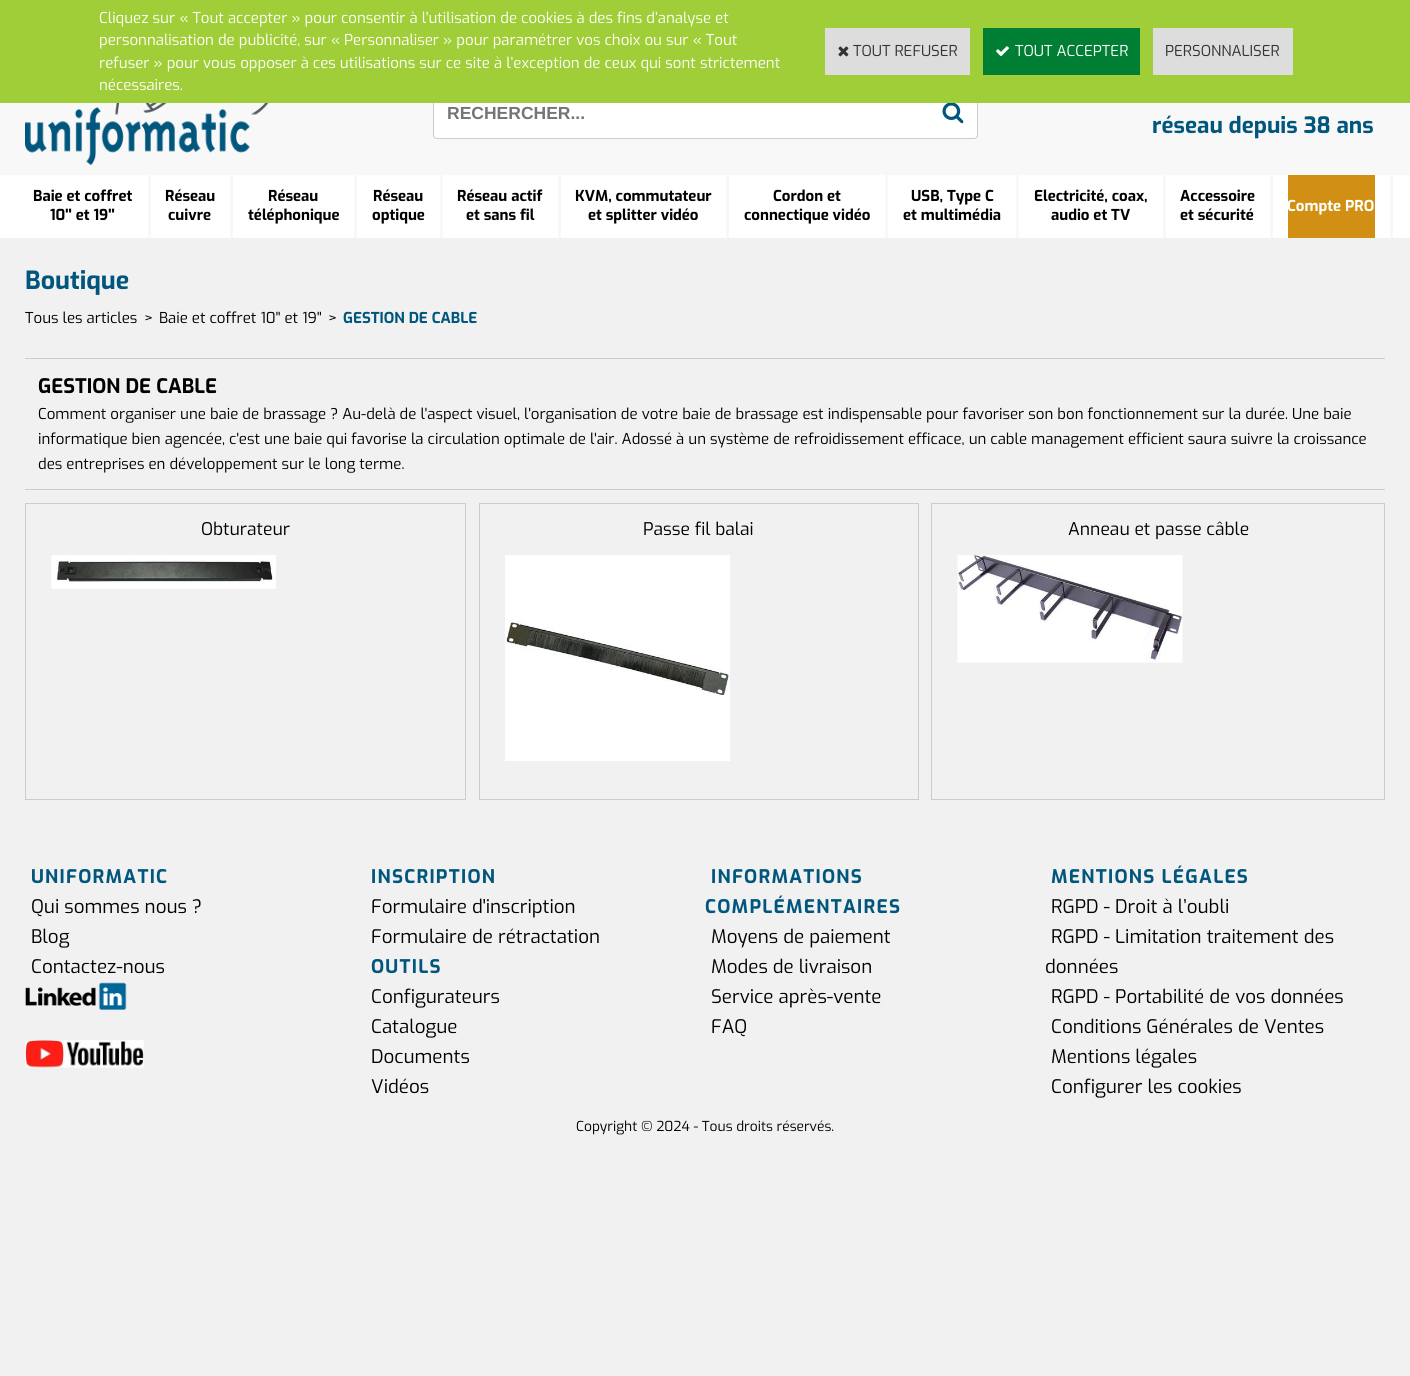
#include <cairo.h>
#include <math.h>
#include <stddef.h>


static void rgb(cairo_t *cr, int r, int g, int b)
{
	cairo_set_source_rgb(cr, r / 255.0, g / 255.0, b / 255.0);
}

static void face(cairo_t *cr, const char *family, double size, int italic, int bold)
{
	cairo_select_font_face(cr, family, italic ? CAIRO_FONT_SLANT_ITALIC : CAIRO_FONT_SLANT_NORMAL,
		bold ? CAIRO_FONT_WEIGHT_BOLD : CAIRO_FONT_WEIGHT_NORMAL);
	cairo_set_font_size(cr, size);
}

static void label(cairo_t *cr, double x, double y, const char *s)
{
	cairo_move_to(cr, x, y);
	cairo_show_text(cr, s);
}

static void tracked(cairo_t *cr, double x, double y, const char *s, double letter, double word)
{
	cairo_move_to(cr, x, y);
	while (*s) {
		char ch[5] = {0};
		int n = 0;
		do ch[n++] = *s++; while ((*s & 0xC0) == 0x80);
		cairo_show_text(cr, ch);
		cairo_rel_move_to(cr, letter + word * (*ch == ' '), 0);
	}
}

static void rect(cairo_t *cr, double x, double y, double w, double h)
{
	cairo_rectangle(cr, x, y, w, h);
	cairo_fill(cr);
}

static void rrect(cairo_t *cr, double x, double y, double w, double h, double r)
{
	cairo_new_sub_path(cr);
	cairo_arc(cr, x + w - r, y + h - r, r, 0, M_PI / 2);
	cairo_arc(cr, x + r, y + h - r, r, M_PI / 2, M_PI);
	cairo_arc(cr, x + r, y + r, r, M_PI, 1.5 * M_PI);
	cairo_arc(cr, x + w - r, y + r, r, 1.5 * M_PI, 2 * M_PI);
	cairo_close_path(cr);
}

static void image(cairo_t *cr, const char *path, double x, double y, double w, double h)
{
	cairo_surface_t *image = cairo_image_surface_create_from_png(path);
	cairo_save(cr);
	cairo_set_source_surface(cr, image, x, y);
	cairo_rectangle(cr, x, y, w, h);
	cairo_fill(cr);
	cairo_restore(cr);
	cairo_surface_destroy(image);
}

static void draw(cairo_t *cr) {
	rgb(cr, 241, 241, 241);
	cairo_paint(cr);
	rgb(cr, 248, 248, 248);
	rect(cr, 0, 103, 1410, 72);
	rgb(cr, 255, 255, 255);
	rrect(cr, 433.5, 86.5, 544, 52, 3.5);
	cairo_fill_preserve(cr);
	rgb(cr, 204, 204, 204);
	cairo_set_line_width(cr, 1);
	cairo_stroke(cr);
	rgb(cr, 160, 206, 56);
	rect(cr, 0, 0, 1410, 103);
	face(cr, "Exo", 15, 0, 0);
	rgb(cr, 255, 255, 255);
	label(cr, 99, 23, "Cliquez sur « Tout accepter » pour consentir à l'utilisation de cookies à des fins d’analyse et");
	label(cr, 99, 45, "personnalisation de publicité, sur « Personnaliser » pour paramétrer vos choix ou sur « Tout");
	label(cr, 99, 68, "refuser » pour vous opposer à ces utilisations sur ce site à l’exception de ceux qui sont strictement");
	label(cr, 99, 90, "nécessaires.");
	rgb(cr, 221, 221, 221);
	rect(cr, 825, 28, 145, 47);
	image(cr, "image0.png", 838, 46, 11, 11);
	rgb(cr, 51, 51, 51);
	label(cr, 853, 56, "TOUT REFUSER");
	rgb(cr, 0, 126, 51);
	rect(cr, 983, 28, 157, 47);
	image(cr, "image1.png", 996, 46, 13, 11);
	rgb(cr, 255, 255, 255);
	label(cr, 1015, 56, "TOUT ACCEPTER");
	rgb(cr, 221, 221, 221);
	rect(cr, 1153, 28, 140, 47);
	rgb(cr, 51, 51, 51);
	label(cr, 1165, 56, "PERSONNALISER");
	rgb(cr, 255, 255, 255);
	rect(cr, 0, 175, 1410, 63);
	image(cr, "image2.png", 25, 103, 244, 62);
	face(cr, "Liberation Sans", 17.5, 0, 1);
	rgb(cr, 117, 117, 117);
	label(cr, 447, 119, "RECHERCHER...");
	image(cr, "image3.png", 942, 103, 22, 21);
	face(cr, "Exo", 22.5, 0, 1);
	rgb(cr, 0, 86, 124);
	label(cr, 1152, 133, "réseau depuis 38 ans");
	rgb(cr, 248, 248, 248);
	rect(cr, 148, 175, 3, 63);
	face(cr, "Exo", 15, 0, 1);
	rgb(cr, 0, 0, 0);
	label(cr, 33, 201, "Baie et coffret");
	label(cr, 50, 220, "10'' et 19''");
	rgb(cr, 248, 248, 248);
	rect(cr, 230, 175, 3, 63);
	rgb(cr, 0, 0, 0);
	label(cr, 165, 201, "Réseau");
	label(cr, 168, 220, "cuivre");
	rgb(cr, 248, 248, 248);
	rect(cr, 354, 175, 3, 63);
	rgb(cr, 0, 0, 0);
	label(cr, 268, 201, "Réseau");
	label(cr, 248, 220, "téléphonique");
	rgb(cr, 248, 248, 248);
	rect(cr, 440, 175, 3, 63);
	rgb(cr, 0, 0, 0);
	label(cr, 373, 201, "Réseau");
	label(cr, 372, 220, "optique");
	rgb(cr, 248, 248, 248);
	rect(cr, 558, 175, 3, 63);
	rgb(cr, 0, 0, 0);
	label(cr, 457, 201, "Réseau actif");
	label(cr, 466, 220, "et sans fil");
	rgb(cr, 248, 248, 248);
	rect(cr, 726, 175, 3, 63);
	rgb(cr, 0, 0, 0);
	label(cr, 575, 201, "KVM, commutateur");
	label(cr, 588, 220, "et splitter vidéo");
	rgb(cr, 248, 248, 248);
	rect(cr, 885, 175, 3, 63);
	rgb(cr, 0, 0, 0);
	label(cr, 773, 201, "Cordon et");
	label(cr, 744, 220, "connectique vidéo");
	rgb(cr, 248, 248, 248);
	rect(cr, 1016, 175, 3, 63);
	rgb(cr, 0, 0, 0);
	label(cr, 911, 201, "USB, Type C");
	label(cr, 903, 220, "et multimédia");
	rgb(cr, 248, 248, 248);
	rect(cr, 1163, 175, 3, 63);
	rgb(cr, 0, 0, 0);
	label(cr, 1034, 201, "Electricité, coax,");
	label(cr, 1051, 220, "audio et TV");
	rgb(cr, 248, 248, 248);
	rect(cr, 1270, 175, 3, 63);
	rgb(cr, 0, 0, 0);
	label(cr, 1180, 201, "Accessoire");
	label(cr, 1180, 220, "et sécurité");
	rgb(cr, 248, 248, 248);
	rect(cr, 1390, 175, 3, 63);
	rgb(cr, 209, 144, 20);
	rect(cr, 1288, 175, 87, 63);
	rgb(cr, 255, 255, 255);
	label(cr, 1287, 211, "Compte PRO");
	face(cr, "Exo", 25, 0, 1);
	rgb(cr, 0, 86, 124);
	label(cr, 25, 289, "Boutique");
	face(cr, "Exo", 15, 0, 0);
	rgb(cr, 0, 0, 0);
	label(cr, 25, 323, "Tous les articles");
	label(cr, 144, 323, ">");
	label(cr, 159, 323, "Baie et coffret 10'' et 19''");
	label(cr, 328, 323, ">");
	face(cr, "Exo", 15, 0, 1);
	rgb(cr, 0, 86, 124);
	label(cr, 343, 323, "GESTION DE CABLE");
	rgb(cr, 204, 204, 204);
	rect(cr, 25, 358, 1360, 1);
	rect(cr, 25, 489, 1360, 1);
	face(cr, "Exo", 20, 0, 1);
	rgb(cr, 0, 0, 0);
	label(cr, 38, 393, "GESTION DE CABLE");
	face(cr, "Exo", 15, 0, 0);
	label(cr, 38, 419, "Comment organiser une baie de brassage ? Au-delà de l'aspect visuel, l'organisation de votre baie de brassage est indispensable pour favoriser son bon fonctionnement sur la durée. Une baie");
	label(cr, 38, 444, "informatique bien agencée, c'est une baie qui favorise la circulation optimale de l'air. Adossé à un système de refroidissement efficace, un cable management efficient saura suivre la croissance");
	label(cr, 38, 469, "des entreprises en développement sur le long terme.");
	cairo_rectangle(cr, 25.5, 503.5, 440, 296);
	rgb(cr, 204, 204, 204);
	cairo_stroke(cr);
	face(cr, "Exo", 17.5, 0, 0);
	rgb(cr, 0, 0, 0);
	label(cr, 201, 535, "Obturateur");
	image(cr, "image4.png", 51, 555, 225, 34);
	cairo_rectangle(cr, 479.5, 503.5, 439, 296);
	rgb(cr, 204, 204, 204);
	cairo_stroke(cr);
	rgb(cr, 0, 0, 0);
	label(cr, 643, 535, "Passe fil balai");
	image(cr, "image5.png", 505, 555, 225, 206);
	cairo_rectangle(cr, 931.5, 503.5, 453, 296);
	rgb(cr, 204, 204, 204);
	cairo_stroke(cr);
	rgb(cr, 0, 0, 0);
	label(cr, 1068, 535, "Anneau et passe câble");
	image(cr, "image6.png", 957, 555, 226, 108);
	face(cr, "Exo", 18.75, 0, 1);
	rgb(cr, 0, 86, 124);
	tracked(cr, 31, 883, "UNIFORMATIC", 1.25, 0);
	face(cr, "Exo", 18.75, 0, 0);
	rgb(cr, 0, 0, 0);
	label(cr, 31, 913, "Qui sommes nous ?");
	label(cr, 31, 943, "Blog");
	label(cr, 31, 973, "Contactez-nous");
	image(cr, "image7.png", 25, 982, 102, 28);
	image(cr, "image8.png", 25, 1040, 119, 28);
	face(cr, "Exo", 18.75, 0, 1);
	rgb(cr, 0, 86, 124);
	tracked(cr, 371, 883, "INSCRIPTION", 1.25, 0);
	face(cr, "Exo", 18.75, 0, 0);
	rgb(cr, 0, 0, 0);
	label(cr, 371, 913, "Formulaire d'inscription");
	label(cr, 371, 943, "Formulaire de rétractation");
	face(cr, "Exo", 18.75, 0, 1);
	rgb(cr, 0, 86, 124);
	tracked(cr, 371, 973, "OUTILS", 1.25, 0);
	face(cr, "Exo", 18.75, 0, 0);
	rgb(cr, 0, 0, 0);
	label(cr, 371, 1003, "Configurateurs");
	label(cr, 371, 1033, "Catalogue");
	label(cr, 371, 1063, "Documents");
	label(cr, 371, 1093, "Vidéos");
	face(cr, "Exo", 18.75, 0, 1);
	rgb(cr, 0, 86, 124);
	tracked(cr, 711, 883, "INFORMATIONS", 1.25, 0);
	tracked(cr, 705, 913, "COMPLÉMENTAIRES", 1.25, 0);
	face(cr, "Exo", 18.75, 0, 0);
	rgb(cr, 0, 0, 0);
	label(cr, 711, 943, "Moyens de paiement");
	label(cr, 711, 973, "Modes de livraison");
	label(cr, 711, 1003, "Service après-vente");
	label(cr, 711, 1033, "FAQ");
	face(cr, "Exo", 18.75, 0, 1);
	rgb(cr, 0, 86, 124);
	tracked(cr, 1051, 883, "MENTIONS LÉGALES", 1.25, 0);
	face(cr, "Exo", 18.75, 0, 0);
	rgb(cr, 0, 0, 0);
	label(cr, 1051, 913, "RGPD - Droit à l’oubli");
	label(cr, 1051, 943, "RGPD - Limitation traitement des");
	label(cr, 1045, 973, "données");
	label(cr, 1051, 1003, "RGPD - Portabilité de vos données");
	label(cr, 1051, 1033, "Conditions Générales de Ventes");
	label(cr, 1051, 1063, "Mentions légales");
	label(cr, 1051, 1093, "Configurer les cookies");
	face(cr, "Exo", 13.75, 0, 0);
	label(cr, 576, 1131, "Copyright © 2024 - Tous droits réservés.");
}

int main(void) {
	cairo_surface_t *surface = cairo_image_surface_create(CAIRO_FORMAT_RGB24, 1410, 1376);
	cairo_t *cr = cairo_create(surface);
	cairo_font_options_t *options = cairo_font_options_create();
	cairo_font_options_set_hint_metrics(options, CAIRO_HINT_METRICS_OFF);
	cairo_font_options_set_hint_style(options, CAIRO_HINT_STYLE_NONE);
	cairo_set_font_options(cr, options);
	cairo_set_miter_limit(cr, 4);
	draw(cr);
	cairo_surface_write_to_png(surface, "render.png");
	cairo_font_options_destroy(options);
	cairo_destroy(cr);
	cairo_surface_destroy(surface);
	return 0;
}
